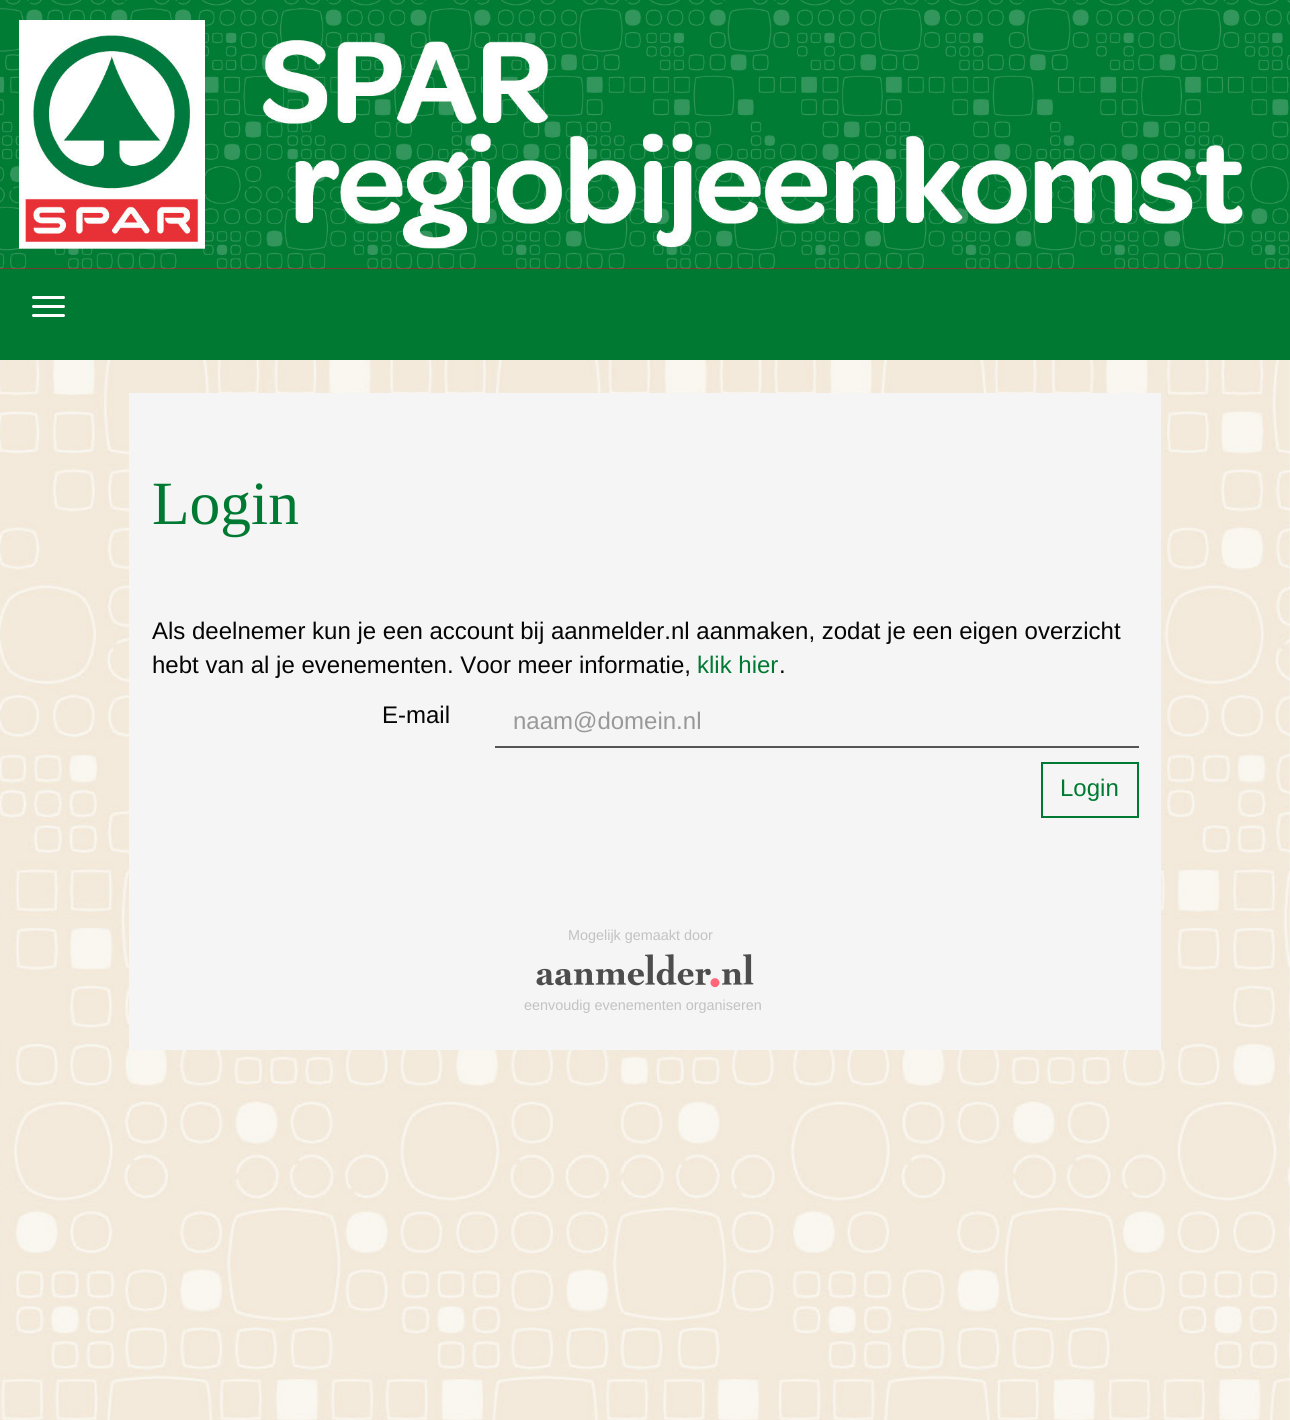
#include <cairo.h>
#include <math.h>
#include <stddef.h>


static void rgb(cairo_t *cr, int r, int g, int b)
{
	cairo_set_source_rgb(cr, r / 255.0, g / 255.0, b / 255.0);
}

static void face(cairo_t *cr, const char *family, double size, int italic, int bold)
{
	cairo_select_font_face(cr, family, italic ? CAIRO_FONT_SLANT_ITALIC : CAIRO_FONT_SLANT_NORMAL,
		bold ? CAIRO_FONT_WEIGHT_BOLD : CAIRO_FONT_WEIGHT_NORMAL);
	cairo_set_font_size(cr, size);
}

static void label(cairo_t *cr, double x, double y, const char *s)
{
	cairo_move_to(cr, x, y);
	cairo_show_text(cr, s);
}

static void rect(cairo_t *cr, double x, double y, double w, double h)
{
	cairo_rectangle(cr, x, y, w, h);
	cairo_fill(cr);
}

static void rrect(cairo_t *cr, double x, double y, double w, double h, double r)
{
	cairo_new_sub_path(cr);
	cairo_arc(cr, x + w - r, y + h - r, r, 0, M_PI / 2);
	cairo_arc(cr, x + r, y + h - r, r, M_PI / 2, M_PI);
	cairo_arc(cr, x + r, y + r, r, M_PI, 1.5 * M_PI);
	cairo_arc(cr, x + w - r, y + r, r, 1.5 * M_PI, 2 * M_PI);
	cairo_close_path(cr);
}

static void image(cairo_t *cr, const char *path, double x, double y, double w, double h)
{
	cairo_surface_t *image = cairo_image_surface_create_from_png(path);
	cairo_save(cr);
	cairo_set_source_surface(cr, image, x, y);
	cairo_rectangle(cr, x, y, w, h);
	cairo_fill(cr);
	cairo_restore(cr);
	cairo_surface_destroy(image);
}

static void draw(cairo_t *cr) {
	rgb(cr, 255, 255, 255);
	cairo_paint(cr);
	image(cr, "image0.png", 0, 360, 1290, 1060);
	rgb(cr, 228, 0, 43);
	rect(cr, 0, 268, 1290, 1);
	image(cr, "image1.png", 0, 0, 1290, 269);
	rgb(cr, 0, 122, 51);
	rect(cr, 0, 269, 1290, 91);
	rgb(cr, 255, 255, 255);
	rrect(cr, 32, 296, 33, 3, 1.5);
	cairo_fill(cr);
	rrect(cr, 32, 305, 33, 3, 1.5);
	cairo_fill(cr);
	rrect(cr, 32, 314, 33, 3, 1.5);
	cairo_fill(cr);
	rgb(cr, 245, 245, 245);
	rect(cr, 129, 393, 1032, 657);
	face(cr, "Liberation Serif", 61.5, 0, 0);
	rgb(cr, 0, 122, 51);
	label(cr, 152, 524, "Login");
	face(cr, "Liberation Sans", 24, 0, 0);
	rgb(cr, 5, 5, 5);
	label(cr, 152, 639, "Als deelnemer kun je een account bij aanmelder.nl aanmaken, zodat je een eigen overzicht");
	label(cr, 152, 673, "hebt van al je evenementen. Voor meer informatie,");
	rgb(cr, 0, 122, 51);
	label(cr, 697, 673, "klik hier");
	rgb(cr, 5, 5, 5);
	label(cr, 779, 673, ".");
	label(cr, 382, 723, "E-mail");
	rgb(cr, 85, 85, 85);
	rect(cr, 495, 746, 644, 2);
	rgb(cr, 153, 153, 153);
	label(cr, 513, 729, "naam@domein.nl");
	cairo_rectangle(cr, 1042, 763, 96, 54);
	rgb(cr, 0, 122, 51);
	cairo_stroke(cr);
	label(cr, 1060, 796, "Login");
	face(cr, "Liberation Sans", 14.4, 0, 0);
	rgb(cr, 194, 194, 194);
	label(cr, 568, 940, "Mogelijk gemaakt door");
	image(cr, "image2.png", 536, 954, 218, 34);
	label(cr, 524, 1010, "eenvoudig evenementen organiseren");
}

int main(void) {
	cairo_surface_t *surface = cairo_image_surface_create(CAIRO_FORMAT_RGB24, 1290, 1420);
	cairo_t *cr = cairo_create(surface);
	cairo_font_options_t *options = cairo_font_options_create();
	cairo_font_options_set_hint_metrics(options, CAIRO_HINT_METRICS_OFF);
	cairo_font_options_set_hint_style(options, CAIRO_HINT_STYLE_NONE);
	cairo_set_font_options(cr, options);
	cairo_set_miter_limit(cr, 4);
	draw(cr);
	cairo_surface_write_to_png(surface, "render.png");
	cairo_font_options_destroy(options);
	cairo_destroy(cr);
	cairo_surface_destroy(surface);
	return 0;
}
